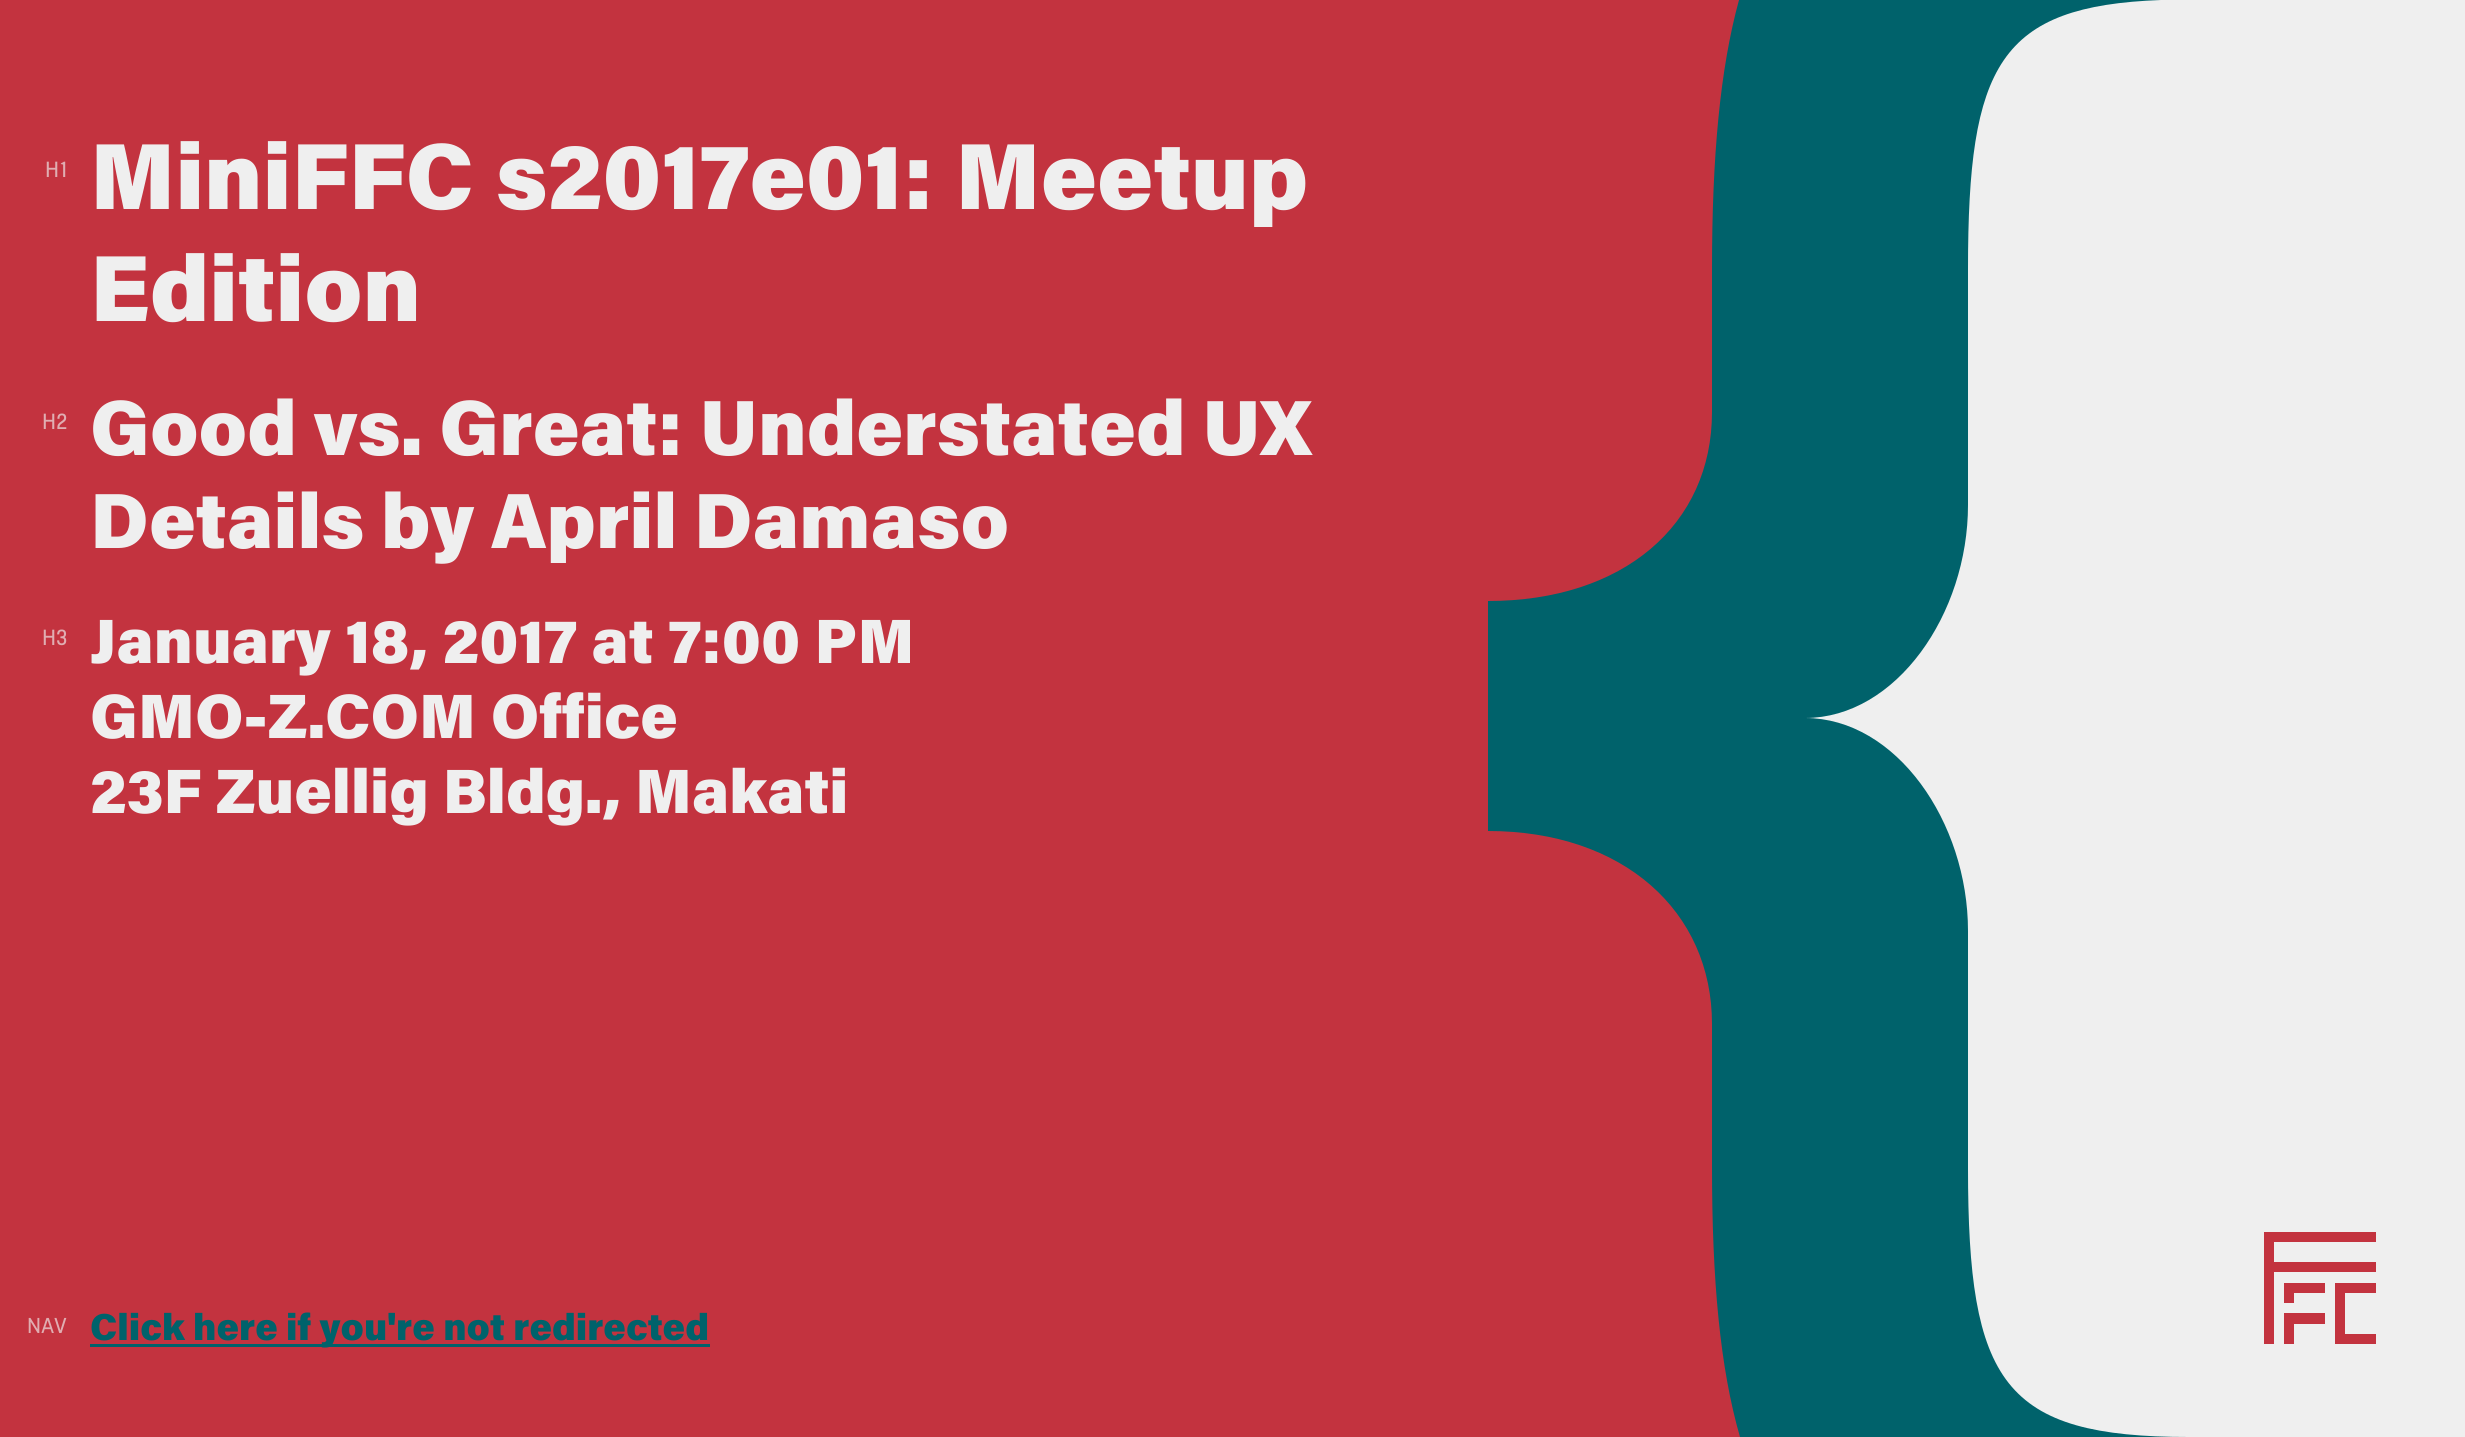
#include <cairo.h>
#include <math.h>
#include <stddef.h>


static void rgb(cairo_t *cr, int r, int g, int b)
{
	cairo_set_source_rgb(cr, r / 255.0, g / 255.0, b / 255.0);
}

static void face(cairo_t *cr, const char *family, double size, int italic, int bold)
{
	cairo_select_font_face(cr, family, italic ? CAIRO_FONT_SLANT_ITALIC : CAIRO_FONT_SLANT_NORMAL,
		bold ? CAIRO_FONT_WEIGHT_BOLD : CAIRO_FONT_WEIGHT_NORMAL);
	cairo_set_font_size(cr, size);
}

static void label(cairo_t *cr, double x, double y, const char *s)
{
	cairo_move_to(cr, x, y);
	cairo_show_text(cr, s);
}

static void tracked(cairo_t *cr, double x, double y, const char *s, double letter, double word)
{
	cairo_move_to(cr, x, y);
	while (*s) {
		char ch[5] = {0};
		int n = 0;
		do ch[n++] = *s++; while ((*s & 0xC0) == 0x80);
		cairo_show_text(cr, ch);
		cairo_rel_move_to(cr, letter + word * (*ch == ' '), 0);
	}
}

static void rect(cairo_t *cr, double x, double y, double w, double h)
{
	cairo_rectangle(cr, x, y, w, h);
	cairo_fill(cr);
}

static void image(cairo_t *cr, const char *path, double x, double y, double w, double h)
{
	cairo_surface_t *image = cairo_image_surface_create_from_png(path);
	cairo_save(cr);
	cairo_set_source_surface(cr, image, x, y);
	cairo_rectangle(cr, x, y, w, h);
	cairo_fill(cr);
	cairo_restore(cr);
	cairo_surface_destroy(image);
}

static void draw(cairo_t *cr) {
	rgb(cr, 195, 51, 63);
	cairo_paint(cr);
	image(cr, "image0.png", 46, 161, 20, 16);
	face(cr, "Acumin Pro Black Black", 93.75, 0, 0);
	rgb(cr, 239, 239, 239);
	tracked(cr, 90, 209, "MiniFFC s2017e01: Meetup", 0, 1);
	label(cr, 90, 321, "Edition");
	image(cr, "image1.png", 43, 413, 24, 16);
	face(cr, "Acumin Pro Black Black", 78.1, 0, 0);
	tracked(cr, 90, 455, "Good vs. Great: Understated UX", 0, -0.5);
	tracked(cr, 90, 548, "Details by April Damaso", 0, -1);
	image(cr, "image2.png", 43, 629, 24, 17);
	face(cr, "Acumin Pro Black Black", 62.5, 0, 0);
	tracked(cr, 90, 663, "January 18, 2017 at 7:00 PM", 0, 0.5);
	tracked(cr, 90, 738, "GMO-Z.COM Office", 0, 1);
	label(cr, 90, 813, "23F Zuellig Bldg., Makati");
	cairo_new_path(cr);
	cairo_move_to(cr, 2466, 0);
	cairo_line_to(cr, 1937, 0);
	cairo_line_to(cr, 1730, 721);
	cairo_line_to(cr, 1931, 1437);
	cairo_line_to(cr, 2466, 1437);
	cairo_close_path(cr);
	cairo_fill(cr);
	rgb(cr, 0, 98, 107);
	cairo_new_path(cr);
	cairo_move_to(cr, 2189, 1437);
	cairo_curve_to(cr, 2003, 1437, 1968, 1383, 1968, 1168);
	cairo_line_to(cr, 1968, 931);
	cairo_curve_to(cr, 1968, 822, 1896, 718, 1805, 718);
	cairo_curve_to(cr, 1896, 718, 1968, 614, 1968, 505);
	cairo_line_to(cr, 1968, 269);
	cairo_curve_to(cr, 1968, 65, 1999, 6, 2161, 0);
	cairo_line_to(cr, 1739, 0);
	cairo_curve_to(cr, 1720, 69, 1712, 157, 1712, 269);
	cairo_line_to(cr, 1712, 412);
	cairo_curve_to(cr, 1712, 525, 1623, 601, 1488, 601);
	cairo_line_to(cr, 1488, 831);
	cairo_curve_to(cr, 1623, 831, 1712, 911, 1712, 1024);
	cairo_line_to(cr, 1712, 1167);
	cairo_curve_to(cr, 1712, 1280, 1720, 1368, 1740, 1437);
	cairo_close_path(cr);
	cairo_fill(cr);
	rgb(cr, 195, 51, 63);
	cairo_new_path(cr);
	cairo_move_to(cr, 2264, 1232);
	cairo_line_to(cr, 2264, 1344);
	cairo_line_to(cr, 2274, 1344);
	cairo_line_to(cr, 2274, 1272);
	cairo_line_to(cr, 2376, 1272);
	cairo_line_to(cr, 2376, 1262);
	cairo_line_to(cr, 2274, 1262);
	cairo_line_to(cr, 2274, 1242);
	cairo_line_to(cr, 2376, 1242);
	cairo_line_to(cr, 2376, 1232);
	cairo_close_path(cr);
	cairo_fill(cr);
	cairo_new_path(cr);
	cairo_move_to(cr, 2284, 1313);
	cairo_line_to(cr, 2284, 1344);
	cairo_line_to(cr, 2294, 1344);
	cairo_line_to(cr, 2294, 1324);
	cairo_line_to(cr, 2325, 1324);
	cairo_line_to(cr, 2325, 1313);
	cairo_close_path(cr);
	cairo_fill(cr);
	cairo_new_path(cr);
	cairo_move_to(cr, 2335, 1283);
	cairo_line_to(cr, 2335, 1344);
	cairo_line_to(cr, 2376, 1344);
	cairo_line_to(cr, 2376, 1334);
	cairo_line_to(cr, 2345, 1334);
	cairo_line_to(cr, 2345, 1293);
	cairo_line_to(cr, 2376, 1293);
	cairo_line_to(cr, 2376, 1283);
	cairo_close_path(cr);
	cairo_fill(cr);
	cairo_new_path(cr);
	cairo_move_to(cr, 2284, 1283);
	cairo_line_to(cr, 2284, 1303);
	cairo_line_to(cr, 2294, 1303);
	cairo_line_to(cr, 2294, 1293);
	cairo_line_to(cr, 2325, 1293);
	cairo_line_to(cr, 2325, 1283);
	cairo_close_path(cr);
	cairo_fill(cr);
	face(cr, "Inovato", 23, 0, 0);
	rgb(cr, 224, 173, 177);
	label(cr, 27, 1333, "NAV");
	rgb(cr, 0, 98, 107);
	rect(cr, 90, 1344, 620, 3);
	face(cr, "Acumin Pro Black Black", 37.5, 0, 0);
	label(cr, 90, 1340, "Click here if you're not redirected");
}

int main(void) {
	cairo_surface_t *surface = cairo_image_surface_create(CAIRO_FORMAT_RGB24, 2465, 1437);
	cairo_t *cr = cairo_create(surface);
	cairo_font_options_t *options = cairo_font_options_create();
	cairo_font_options_set_hint_metrics(options, CAIRO_HINT_METRICS_OFF);
	cairo_font_options_set_hint_style(options, CAIRO_HINT_STYLE_NONE);
	cairo_set_font_options(cr, options);
	cairo_set_miter_limit(cr, 4);
	draw(cr);
	cairo_surface_write_to_png(surface, "render.png");
	cairo_font_options_destroy(options);
	cairo_destroy(cr);
	cairo_surface_destroy(surface);
	return 0;
}
